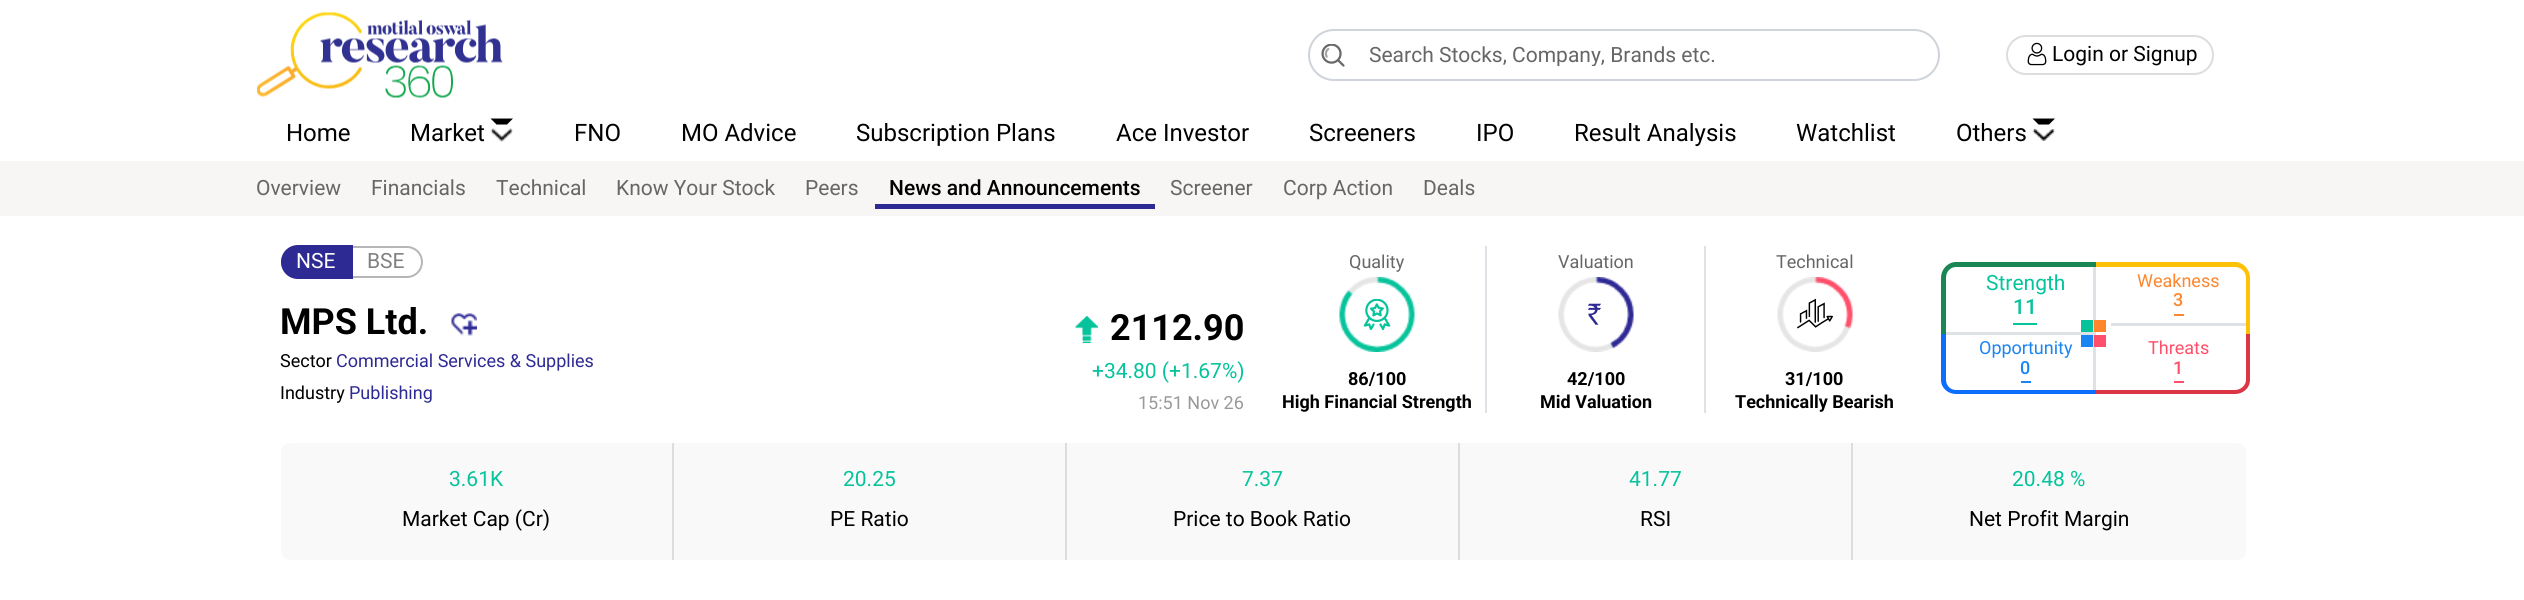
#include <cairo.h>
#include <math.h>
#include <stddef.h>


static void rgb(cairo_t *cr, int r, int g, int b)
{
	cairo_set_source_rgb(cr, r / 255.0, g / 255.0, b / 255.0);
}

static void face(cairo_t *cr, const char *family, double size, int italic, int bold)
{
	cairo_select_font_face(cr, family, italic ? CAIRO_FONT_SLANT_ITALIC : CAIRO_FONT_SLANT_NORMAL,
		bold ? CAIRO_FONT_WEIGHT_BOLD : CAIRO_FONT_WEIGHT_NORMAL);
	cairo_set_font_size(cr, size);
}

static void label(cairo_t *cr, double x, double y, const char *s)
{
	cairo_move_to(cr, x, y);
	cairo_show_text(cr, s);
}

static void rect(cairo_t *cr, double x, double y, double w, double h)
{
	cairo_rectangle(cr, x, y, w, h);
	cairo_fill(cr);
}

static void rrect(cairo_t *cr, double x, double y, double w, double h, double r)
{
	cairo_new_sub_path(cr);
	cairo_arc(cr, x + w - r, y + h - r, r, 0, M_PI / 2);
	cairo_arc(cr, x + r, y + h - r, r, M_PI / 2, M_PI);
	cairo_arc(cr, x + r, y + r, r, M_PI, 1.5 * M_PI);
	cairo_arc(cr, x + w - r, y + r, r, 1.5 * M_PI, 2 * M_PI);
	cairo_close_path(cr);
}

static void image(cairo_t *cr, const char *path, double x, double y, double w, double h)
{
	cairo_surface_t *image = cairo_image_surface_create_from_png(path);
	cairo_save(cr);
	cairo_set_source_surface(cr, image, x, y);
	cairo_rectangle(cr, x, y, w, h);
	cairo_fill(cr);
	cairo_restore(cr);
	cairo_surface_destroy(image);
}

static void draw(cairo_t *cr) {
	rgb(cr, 255, 255, 255);
	cairo_paint(cr);
	image(cr, "image0.png", 257, 12, 246, 86);
	rrect(cr, 1309, 30, 630, 50, 25);
	rgb(cr, 206, 212, 218);
	cairo_stroke(cr);
	image(cr, "image1.png", 1321, 44, 24, 23);
	cairo_save(cr);
	cairo_rectangle(cr, 1370, 42, 510, 24);
	cairo_clip(cr);
	face(cr, "Roboto", 21, 0, 0);
	rgb(cr, 102, 102, 102);
	label(cr, 1369, 62, "Search Stocks, Company, Brands etc.");
	cairo_restore(cr);
	rrect(cr, 2007, 36, 206, 38, 19);
	rgb(cr, 221, 221, 221);
	cairo_stroke(cr);
	image(cr, "image2.png", 2027, 42, 20, 24);
	face(cr, "Roboto", 21, 0, 0);
	rgb(cr, 0, 0, 0);
	label(cr, 2052, 61, "Login or Signup");
	face(cr, "Roboto", 24, 0, 0);
	label(cr, 286, 141, "Home");
	label(cr, 410, 141, "Market");
	cairo_new_path(cr);
	cairo_move_to(cr, 490.5, 118.5);
	cairo_line_to(cr, 513, 118.5);
	cairo_line_to(cr, 507, 124.5);
	cairo_line_to(cr, 496.5, 124.5);
	cairo_close_path(cr);
	cairo_fill(cr);
	image(cr, "image3.png", 490, 128, 23, 14);
	label(cr, 574, 141, "FNO");
	label(cr, 681, 141, "MO Advice");
	label(cr, 856, 141, "Subscription Plans");
	label(cr, 1116, 141, "Ace Investor");
	label(cr, 1309, 141, "Screeners");
	label(cr, 1476, 141, "IPO");
	label(cr, 1574, 141, "Result Analysis");
	label(cr, 1796, 141, "Watchlist");
	label(cr, 1956, 141, "Others");
	cairo_new_path(cr);
	cairo_move_to(cr, 2032.5, 118.5);
	cairo_line_to(cr, 2055, 118.5);
	cairo_line_to(cr, 2049, 124.5);
	cairo_line_to(cr, 2038.5, 124.5);
	cairo_close_path(cr);
	cairo_fill(cr);
	image(cr, "image4.png", 2032, 129, 23, 12);
	rgb(cr, 247, 246, 244);
	rect(cr, 0, 161, 2524, 55);
	face(cr, "Roboto", 21, 0, 0);
	rgb(cr, 102, 102, 102);
	label(cr, 256, 195, "Overview");
	label(cr, 371, 195, "Financials");
	label(cr, 496, 195, "Technical");
	label(cr, 616, 195, "Know Your Stock");
	label(cr, 805, 195, "Peers");
	rgb(cr, 46, 42, 148);
	rect(cr, 875, 204, 280, 5);
	face(cr, "Roboto Medium", 21, 0, 0);
	rgb(cr, 0, 0, 0);
	label(cr, 889, 195, "News and Announcements");
	face(cr, "Roboto", 21, 0, 0);
	rgb(cr, 102, 102, 102);
	label(cr, 1170, 195, "Screener");
	label(cr, 1283, 195, "Corp Action");
	label(cr, 1423, 195, "Deals");
	rrect(cr, 282, 247, 140, 30, 15);
	rgb(cr, 182, 182, 182);
	cairo_stroke(cr);
	rgb(cr, 46, 42, 148);
	cairo_new_path(cr);
	cairo_move_to(cr, 298, 245);
	cairo_line_to(cr, 353, 245);
	cairo_line_to(cr, 353, 279);
	cairo_line_to(cr, 298, 279);
	cairo_curve_to(cr, 288.5, 279, 281, 271.5, 281, 262);
	cairo_curve_to(cr, 281, 252.5, 288.5, 245, 298, 245);
	cairo_close_path(cr);
	cairo_fill(cr);
	rgb(cr, 255, 255, 255);
	label(cr, 296, 268, "NSE");
	rgb(cr, 128, 128, 128);
	label(cr, 367, 268, "BSE");
	face(cr, "Roboto", 36, 0, 1);
	rgb(cr, 0, 0, 0);
	label(cr, 280, 334, "MPS Ltd.");
	image(cr, "image5.png", 451, 313, 26, 23);
	face(cr, "Roboto", 18, 0, 0);
	label(cr, 280, 367, "Sector");
	rgb(cr, 46, 42, 148);
	label(cr, 336, 367, "Commercial Services & Supplies");
	rgb(cr, 0, 0, 0);
	label(cr, 280, 399, "Industry");
	rgb(cr, 46, 42, 148);
	label(cr, 349, 399, "Publishing");
	image(cr, "image6.png", 1075, 316, 23, 27);
	face(cr, "Roboto", 36, 0, 1);
	rgb(cr, 0, 0, 0);
	label(cr, 1110, 340, "2112.90");
	face(cr, "Roboto", 21, 0, 0);
	rgb(cr, 6, 195, 155);
	label(cr, 1092, 378, "+34.80 (+1.67%)");
	face(cr, "Roboto", 18, 0, 0);
	rgb(cr, 153, 153, 153);
	label(cr, 1138, 409, "15:51 Nov 26");
	rgb(cr, 222, 226, 230);
	rect(cr, 1485, 246, 2, 167);
	rgb(cr, 102, 102, 102);
	label(cr, 1349, 268, "Quality");
	image(cr, "image7.png", 1339, 277, 76, 75);
	image(cr, "image8.png", 1363, 299, 28, 31);
	face(cr, "Roboto", 18, 0, 1);
	rgb(cr, 0, 0, 0);
	label(cr, 1348, 385, "86/100");
	label(cr, 1282, 408, "High Financial Strength");
	rgb(cr, 222, 226, 230);
	rect(cr, 1704, 246, 2, 167);
	face(cr, "Roboto", 18, 0, 0);
	rgb(cr, 102, 102, 102);
	label(cr, 1558, 268, "Valuation");
	image(cr, "image9.png", 1558, 277, 76, 75);
	image(cr, "image10.png", 1588, 303, 13, 22);
	face(cr, "Roboto", 18, 0, 1);
	rgb(cr, 0, 0, 0);
	label(cr, 1567, 385, "42/100");
	label(cr, 1540, 408, "Mid Valuation");
	face(cr, "Roboto", 18, 0, 0);
	rgb(cr, 102, 102, 102);
	label(cr, 1776, 268, "Technical");
	image(cr, "image11.png", 1777, 277, 76, 75);
	image(cr, "image12.png", 1797, 298, 36, 31);
	face(cr, "Roboto", 18, 0, 1);
	rgb(cr, 0, 0, 0);
	label(cr, 1785, 385, "31/100");
	label(cr, 1735, 408, "Technically Bearish");
	rgb(cr, 25, 135, 84);
	cairo_set_fill_rule(cr, CAIRO_FILL_RULE_EVEN_ODD);
	cairo_new_path(cr);
	cairo_move_to(cr, 1956, 262);
	cairo_line_to(cr, 2096, 262);
	cairo_line_to(cr, 2096, 334);
	cairo_line_to(cr, 1941, 334);
	cairo_line_to(cr, 1941, 278);
	cairo_curve_to(cr, 1941, 269, 1948, 262, 1956, 262);
	cairo_close_path(cr);
	cairo_move_to(cr, 1956, 267);
	cairo_line_to(cr, 2096, 267);
	cairo_line_to(cr, 2096, 334);
	cairo_line_to(cr, 1946, 334);
	cairo_line_to(cr, 1946, 278);
	cairo_curve_to(cr, 1946, 272, 1950, 267, 1956, 267);
	cairo_close_path(cr);
	cairo_fill(cr);
	rgb(cr, 13, 110, 253);
	cairo_new_path(cr);
	cairo_move_to(cr, 1941, 334);
	cairo_line_to(cr, 2096, 334);
	cairo_line_to(cr, 2096, 394);
	cairo_line_to(cr, 1956, 394);
	cairo_curve_to(cr, 1948, 394, 1941, 388, 1941, 380);
	cairo_close_path(cr);
	cairo_move_to(cr, 1946, 334);
	cairo_line_to(cr, 2096, 334);
	cairo_line_to(cr, 2096, 390);
	cairo_line_to(cr, 1956, 390);
	cairo_curve_to(cr, 1950, 390, 1946, 385, 1946, 380);
	cairo_close_path(cr);
	cairo_fill(cr);
	rgb(cr, 222, 226, 230);
	rect(cr, 2093, 267, 3, 123);
	rect(cr, 1946, 332, 150, 3);
	face(cr, "Roboto", 21, 0, 0);
	rgb(cr, 6, 195, 155);
	label(cr, 1986, 290, "Strength");
	rect(cr, 2013, 323, 24, 2);
	face(cr, "Roboto Medium", 21, 0, 0);
	label(cr, 2013, 314, "11");
	rect(cr, 2081, 320, 12, 12);
	rgb(cr, 255, 193, 7);
	cairo_new_path(cr);
	cairo_move_to(cr, 2096, 262);
	cairo_line_to(cr, 2235, 262);
	cairo_curve_to(cr, 2243, 262, 2250, 269, 2250, 278);
	cairo_line_to(cr, 2250, 334);
	cairo_line_to(cr, 2096, 334);
	cairo_close_path(cr);
	cairo_move_to(cr, 2096, 267);
	cairo_line_to(cr, 2235, 267);
	cairo_curve_to(cr, 2241, 267, 2246, 272, 2246, 278);
	cairo_line_to(cr, 2246, 334);
	cairo_line_to(cr, 2096, 334);
	cairo_close_path(cr);
	cairo_fill(cr);
	rgb(cr, 254, 134, 45);
	rect(cr, 2094, 320, 12, 12);
	rgb(cr, 222, 226, 230);
	rect(cr, 2111, 323, 135, 3);
	face(cr, "Roboto", 18, 0, 0);
	rgb(cr, 254, 134, 45);
	label(cr, 2137, 287, "Weakness");
	rect(cr, 2174, 314, 10, 2);
	face(cr, "Roboto Medium", 18, 0, 0);
	label(cr, 2173, 306, "3");
	face(cr, "Roboto", 18, 0, 0);
	rgb(cr, 25, 132, 242);
	label(cr, 1979, 354, "Opportunity");
	rect(cr, 2081, 335, 12, 12);
	rgb(cr, 220, 53, 69);
	cairo_new_path(cr);
	cairo_move_to(cr, 2096, 334);
	cairo_line_to(cr, 2250, 334);
	cairo_line_to(cr, 2250, 380);
	cairo_curve_to(cr, 2250, 388, 2243, 394, 2235, 394);
	cairo_line_to(cr, 2096, 394);
	cairo_close_path(cr);
	cairo_move_to(cr, 2096, 334);
	cairo_line_to(cr, 2246, 334);
	cairo_line_to(cr, 2246, 380);
	cairo_curve_to(cr, 2246, 385, 2241, 390, 2235, 390);
	cairo_line_to(cr, 2096, 390);
	cairo_close_path(cr);
	cairo_fill(cr);
	rgb(cr, 255, 79, 106);
	rect(cr, 2094, 335, 12, 12);
	rgb(cr, 25, 132, 242);
	rect(cr, 2021, 381, 10, 2);
	face(cr, "Roboto Medium", 18, 0, 0);
	label(cr, 2020, 374, "0");
	face(cr, "Roboto", 18, 0, 0);
	rgb(cr, 255, 79, 106);
	label(cr, 2148, 354, "Threats");
	rect(cr, 2174, 381, 10, 2);
	face(cr, "Roboto Medium", 18, 0, 0);
	label(cr, 2173, 374, "1");
	rgb(cr, 249, 249, 249);
	cairo_new_path(cr);
	cairo_move_to(cr, 290, 443);
	cairo_line_to(cr, 674, 443);
	cairo_line_to(cr, 674, 560);
	cairo_line_to(cr, 290, 560);
	cairo_curve_to(cr, 285, 560, 281, 556, 281, 551);
	cairo_line_to(cr, 281, 452);
	cairo_curve_to(cr, 281, 447, 285, 443, 290, 443);
	cairo_close_path(cr);
	cairo_fill(cr);
	rgb(cr, 221, 221, 221);
	rect(cr, 672, 443, 2, 117);
	face(cr, "Roboto", 21, 0, 0);
	rgb(cr, 6, 195, 155);
	label(cr, 449, 486, "3.61K");
	rgb(cr, 0, 0, 0);
	label(cr, 402, 526, "Market Cap (Cr)");
	rgb(cr, 249, 249, 249);
	rect(cr, 674, 443, 391, 117);
	rgb(cr, 221, 221, 221);
	rect(cr, 1065, 443, 2, 117);
	rgb(cr, 6, 195, 155);
	label(cr, 843, 486, "20.25");
	rgb(cr, 0, 0, 0);
	label(cr, 830, 526, "PE Ratio");
	rgb(cr, 249, 249, 249);
	rect(cr, 1067, 443, 391, 117);
	rgb(cr, 221, 221, 221);
	rect(cr, 1458, 443, 2, 117);
	rgb(cr, 6, 195, 155);
	label(cr, 1242, 486, "7.37");
	rgb(cr, 0, 0, 0);
	label(cr, 1173, 526, "Price to Book Ratio");
	rgb(cr, 249, 249, 249);
	rect(cr, 1460, 443, 391, 117);
	rgb(cr, 221, 221, 221);
	rect(cr, 1851, 443, 2, 117);
	rgb(cr, 6, 195, 155);
	label(cr, 1629, 486, "41.77");
	rgb(cr, 0, 0, 0);
	label(cr, 1640, 526, "RSI");
	rgb(cr, 249, 249, 249);
	cairo_new_path(cr);
	cairo_move_to(cr, 1853, 443);
	cairo_line_to(cr, 2237, 443);
	cairo_curve_to(cr, 2242, 443, 2246, 447, 2246, 452);
	cairo_line_to(cr, 2246, 551);
	cairo_curve_to(cr, 2246, 556, 2242, 560, 2237, 560);
	cairo_line_to(cr, 1853, 560);
	cairo_close_path(cr);
	cairo_fill(cr);
	rgb(cr, 6, 195, 155);
	label(cr, 2012, 486, "20.48 %");
	rgb(cr, 0, 0, 0);
	label(cr, 1969, 526, "Net Profit Margin");
}

int main(void) {
	cairo_surface_t *surface = cairo_image_surface_create(CAIRO_FORMAT_RGB24, 2524, 600);
	cairo_t *cr = cairo_create(surface);
	cairo_font_options_t *options = cairo_font_options_create();
	cairo_font_options_set_hint_metrics(options, CAIRO_HINT_METRICS_OFF);
	cairo_font_options_set_hint_style(options, CAIRO_HINT_STYLE_NONE);
	cairo_set_font_options(cr, options);
	cairo_set_miter_limit(cr, 4);
	draw(cr);
	cairo_surface_write_to_png(surface, "render.png");
	cairo_font_options_destroy(options);
	cairo_destroy(cr);
	cairo_surface_destroy(surface);
	return 0;
}
